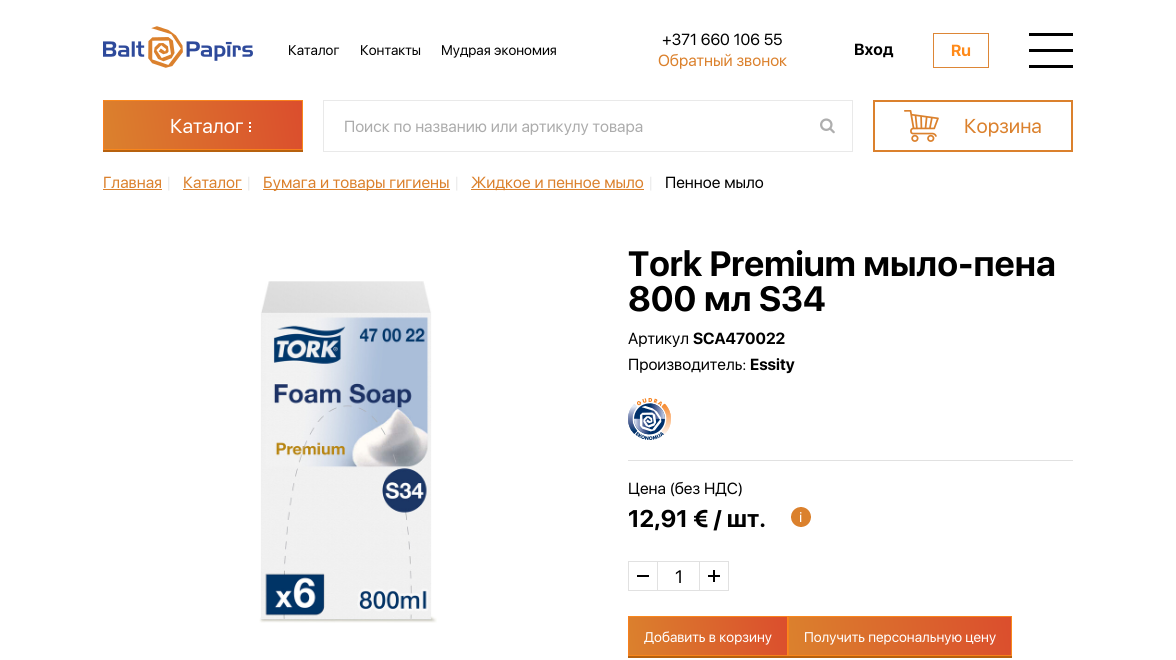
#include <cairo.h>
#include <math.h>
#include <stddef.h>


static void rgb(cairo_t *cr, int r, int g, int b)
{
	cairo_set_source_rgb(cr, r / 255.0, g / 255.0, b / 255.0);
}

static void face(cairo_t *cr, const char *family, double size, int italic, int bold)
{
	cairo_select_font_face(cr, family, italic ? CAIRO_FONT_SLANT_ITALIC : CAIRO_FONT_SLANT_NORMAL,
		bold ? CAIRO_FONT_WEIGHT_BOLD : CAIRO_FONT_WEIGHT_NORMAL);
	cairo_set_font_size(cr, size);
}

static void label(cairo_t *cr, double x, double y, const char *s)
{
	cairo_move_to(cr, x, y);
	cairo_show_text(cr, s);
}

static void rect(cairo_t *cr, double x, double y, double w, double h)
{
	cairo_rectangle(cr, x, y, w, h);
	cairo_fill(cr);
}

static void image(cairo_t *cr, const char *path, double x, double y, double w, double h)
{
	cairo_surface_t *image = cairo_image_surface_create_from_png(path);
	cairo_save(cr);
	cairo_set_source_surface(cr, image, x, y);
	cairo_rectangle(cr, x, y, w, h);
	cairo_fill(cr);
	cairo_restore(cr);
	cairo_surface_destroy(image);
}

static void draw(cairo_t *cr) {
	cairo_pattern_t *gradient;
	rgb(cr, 255, 255, 255);
	cairo_paint(cr);
	image(cr, "image0.png", 103, 26, 150, 42);
	face(cr, "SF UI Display", 14, 0, 0);
	rgb(cr, 0, 0, 0);
	label(cr, 288, 55, "Каталог");
	label(cr, 360, 55, "Контакты");
	label(cr, 441, 55, "Мудрая экономия");
	face(cr, "SF UI Display", 16, 0, 0);
	label(cr, 662, 45, "+371 660 106 55");
	rgb(cr, 219, 129, 45);
	label(cr, 658, 66, "Обратный звонок");
	face(cr, "SF UI Display", 16, 0, 1);
	rgb(cr, 0, 0, 0);
	label(cr, 854, 55, "Вход");
	cairo_rectangle(cr, 933.5, 33.5, 55, 34);
	rgb(cr, 221, 134, 54);
	cairo_set_line_width(cr, 1);
	cairo_stroke(cr);
	rgb(cr, 255, 138, 25);
	label(cr, 951, 56, "Ru");
	rgb(cr, 0, 0, 0);
	rect(cr, 1029, 33, 44, 3);
	rect(cr, 1029, 49, 44, 3);
	rect(cr, 1029, 65, 44, 3);
	rgb(cr, 183, 97, 14);
	rect(cr, 103, 150, 200, 2);
	rgb(cr, 219, 129, 45);
	rect(cr, 302, 100, 1, 1);
	gradient = cairo_pattern_create_linear(105, 61, -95, 93);
	cairo_pattern_add_color_stop_rgba(gradient, 0, 0.859, 0.306, 0.176, 1);
	cairo_pattern_add_color_stop_rgba(gradient, 1, 0.859, 0.506, 0.176, 1);
	cairo_set_source(cr, gradient);
	cairo_pattern_destroy(gradient);
	rect(cr, 103, 100, 1, 1);
	gradient = cairo_pattern_create_linear(303, 61, 103, 93);
	cairo_pattern_add_color_stop_rgba(gradient, 0, 0.859, 0.306, 0.176, 1);
	cairo_pattern_add_color_stop_rgba(gradient, 1, 0.859, 0.506, 0.176, 1);
	cairo_set_source(cr, gradient);
	cairo_pattern_destroy(gradient);
	rect(cr, 104, 100, 198, 1);
	gradient = cairo_pattern_create_linear(105, 109, -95, 141);
	cairo_pattern_add_color_stop_rgba(gradient, 0, 0.859, 0.306, 0.176, 1);
	cairo_pattern_add_color_stop_rgba(gradient, 1, 0.859, 0.506, 0.176, 1);
	cairo_set_source(cr, gradient);
	cairo_pattern_destroy(gradient);
	rect(cr, 103, 101, 1, 48);
	gradient = cairo_pattern_create_linear(303, 109, 103, 141);
	cairo_pattern_add_color_stop_rgba(gradient, 0, 0.859, 0.306, 0.176, 1);
	cairo_pattern_add_color_stop_rgba(gradient, 1, 0.859, 0.506, 0.176, 1);
	cairo_set_source(cr, gradient);
	cairo_pattern_destroy(gradient);
	rect(cr, 104, 101, 198, 48);
	gradient = cairo_pattern_create_linear(501, 109, 301, 141);
	cairo_pattern_add_color_stop_rgba(gradient, 0, 0.859, 0.306, 0.176, 1);
	cairo_pattern_add_color_stop_rgba(gradient, 1, 0.859, 0.506, 0.176, 1);
	cairo_set_source(cr, gradient);
	cairo_pattern_destroy(gradient);
	rect(cr, 302, 101, 1, 48);
	gradient = cairo_pattern_create_linear(105, 157, -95, 189);
	cairo_pattern_add_color_stop_rgba(gradient, 0, 0.859, 0.306, 0.176, 1);
	cairo_pattern_add_color_stop_rgba(gradient, 1, 0.859, 0.506, 0.176, 1);
	cairo_set_source(cr, gradient);
	cairo_pattern_destroy(gradient);
	rect(cr, 103, 149, 1, 1);
	gradient = cairo_pattern_create_linear(303, 157, 103, 189);
	cairo_pattern_add_color_stop_rgba(gradient, 0, 0.859, 0.306, 0.176, 1);
	cairo_pattern_add_color_stop_rgba(gradient, 1, 0.859, 0.506, 0.176, 1);
	cairo_set_source(cr, gradient);
	cairo_pattern_destroy(gradient);
	rect(cr, 104, 149, 198, 1);
	gradient = cairo_pattern_create_linear(501, 157, 301, 189);
	cairo_pattern_add_color_stop_rgba(gradient, 0, 0.859, 0.306, 0.176, 1);
	cairo_pattern_add_color_stop_rgba(gradient, 1, 0.859, 0.506, 0.176, 1);
	cairo_set_source(cr, gradient);
	cairo_pattern_destroy(gradient);
	rect(cr, 302, 149, 1, 1);
	cairo_rectangle(cr, 103.5, 100.5, 199, 49);
	cairo_set_source_rgba(cr, 1, 0.541, 0.098, 0.83);
	cairo_stroke(cr);
	face(cr, "SF UI Display", 20, 0, 0);
	rgb(cr, 255, 255, 255);
	label(cr, 170, 133, "Каталог");
	image(cr, "image1.png", 249, 122, 2, 10);
	cairo_rectangle(cr, 323.5, 100.5, 529, 51);
	rgb(cr, 233, 233, 233);
	cairo_stroke(cr);
	face(cr, "SF UI Display", 16, 0, 0);
	rgb(cr, 172, 172, 172);
	label(cr, 344, 132, "Поиск по названию или артикулу товара");
	image(cr, "image2.png", 820, 118, 15, 16);
	cairo_rectangle(cr, 874, 101, 198, 50);
	rgb(cr, 219, 129, 45);
	cairo_set_line_width(cr, 2);
	cairo_stroke(cr);
	image(cr, "image3.png", 904, 110, 35, 32);
	face(cr, "SF UI Display", 20, 0, 0);
	label(cr, 964, 133, "Корзина");
	face(cr, "SF UI Display", 16, 0, 0);
	label(cr, 103, 188, "Главная");
	rect(cr, 103, 189, 59, 1);
	rgb(cr, 233, 233, 233);
	label(cr, 167, 188, "|");
	rgb(cr, 219, 129, 45);
	label(cr, 183, 188, "Каталог");
	rect(cr, 183, 189, 59, 1);
	rgb(cr, 233, 233, 233);
	label(cr, 247, 188, "|");
	rgb(cr, 219, 129, 45);
	rect(cr, 263, 189, 187, 1);
	label(cr, 263, 188, "Бумага и товары гигиены");
	rgb(cr, 233, 233, 233);
	label(cr, 455, 188, "|");
	rgb(cr, 219, 129, 45);
	rect(cr, 471, 189, 173, 1);
	label(cr, 471, 188, "Жидкое и пенное мыло");
	rgb(cr, 233, 233, 233);
	label(cr, 649, 188, "|");
	rgb(cr, 0, 0, 0);
	label(cr, 665, 188, "Пенное мыло");
	image(cr, "image4.png", 259, 281, 178, 342);
	face(cr, "SF UI Display", 35, 0, 1);
	label(cr, 628, 276, "Tork Premium мыло-пена");
	label(cr, 628, 311, "800 мл S34");
	face(cr, "SF UI Display", 16, 0, 0);
	label(cr, 628, 344, "Артикул");
	face(cr, "SF UI Display", 16, 0, 1);
	label(cr, 693, 344, "SCA470022");
	face(cr, "SF UI Display", 16, 0, 0);
	label(cr, 628, 370, "Производитель:");
	face(cr, "SF UI Display", 16, 0, 1);
	label(cr, 750, 370, "Essity");
	image(cr, "image5.png", 628, 398, 43, 42);
	rgb(cr, 225, 225, 225);
	rect(cr, 628, 460, 445, 1);
	face(cr, "SF UI Display", 16, 0, 0);
	rgb(cr, 0, 0, 0);
	label(cr, 628, 494, "Цена (без НДС)");
	face(cr, "SF UI Display", 24, 0, 1);
	label(cr, 628, 527, "12,91 € / шт.");
	image(cr, "image6.png", 791, 507, 20, 20);
	rect(cr, 637, 575, 12, 2);
	cairo_rectangle(cr, 628.5, 561.5, 29, 29);
	rgb(cr, 225, 225, 225);
	cairo_set_line_width(cr, 1);
	cairo_stroke(cr);
	rect(cr, 658, 561, 41, 1);
	rect(cr, 658, 590, 41, 1);
	face(cr, "SF UI Display", 18, 0, 0);
	rgb(cr, 0, 0, 0);
	label(cr, 675, 583, "1");
	image(cr, "image7.png", 708, 570, 12, 12);
	cairo_rectangle(cr, 699.5, 561.5, 29, 29);
	rgb(cr, 225, 225, 225);
	cairo_stroke(cr);
	rgb(cr, 183, 97, 14);
	rect(cr, 628, 656, 384, 2);
	rgb(cr, 219, 129, 45);
	rect(cr, 787, 616, 1, 1);
	gradient = cairo_pattern_create_linear(630, 585, 470, 611);
	cairo_pattern_add_color_stop_rgba(gradient, 0, 0.859, 0.306, 0.176, 1);
	cairo_pattern_add_color_stop_rgba(gradient, 1, 0.859, 0.506, 0.176, 1);
	cairo_set_source(cr, gradient);
	cairo_pattern_destroy(gradient);
	rect(cr, 628, 616, 1, 1);
	gradient = cairo_pattern_create_linear(788, 585, 628, 611);
	cairo_pattern_add_color_stop_rgba(gradient, 0, 0.859, 0.306, 0.176, 1);
	cairo_pattern_add_color_stop_rgba(gradient, 1, 0.859, 0.506, 0.176, 1);
	cairo_set_source(cr, gradient);
	cairo_pattern_destroy(gradient);
	rect(cr, 629, 616, 158, 1);
	gradient = cairo_pattern_create_linear(630, 623, 470, 649);
	cairo_pattern_add_color_stop_rgba(gradient, 0, 0.859, 0.306, 0.176, 1);
	cairo_pattern_add_color_stop_rgba(gradient, 1, 0.859, 0.506, 0.176, 1);
	cairo_set_source(cr, gradient);
	cairo_pattern_destroy(gradient);
	rect(cr, 628, 617, 1, 38);
	gradient = cairo_pattern_create_linear(788, 623, 628, 649);
	cairo_pattern_add_color_stop_rgba(gradient, 0, 0.859, 0.306, 0.176, 1);
	cairo_pattern_add_color_stop_rgba(gradient, 1, 0.859, 0.506, 0.176, 1);
	cairo_set_source(cr, gradient);
	cairo_pattern_destroy(gradient);
	rect(cr, 629, 617, 158, 38);
	gradient = cairo_pattern_create_linear(946, 623, 786, 649);
	cairo_pattern_add_color_stop_rgba(gradient, 0, 0.859, 0.306, 0.176, 1);
	cairo_pattern_add_color_stop_rgba(gradient, 1, 0.859, 0.506, 0.176, 1);
	cairo_set_source(cr, gradient);
	cairo_pattern_destroy(gradient);
	rect(cr, 787, 617, 1, 38);
	gradient = cairo_pattern_create_linear(630, 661, 470, 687);
	cairo_pattern_add_color_stop_rgba(gradient, 0, 0.859, 0.306, 0.176, 1);
	cairo_pattern_add_color_stop_rgba(gradient, 1, 0.859, 0.506, 0.176, 1);
	cairo_set_source(cr, gradient);
	cairo_pattern_destroy(gradient);
	rect(cr, 628, 655, 1, 1);
	gradient = cairo_pattern_create_linear(788, 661, 628, 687);
	cairo_pattern_add_color_stop_rgba(gradient, 0, 0.859, 0.306, 0.176, 1);
	cairo_pattern_add_color_stop_rgba(gradient, 1, 0.859, 0.506, 0.176, 1);
	cairo_set_source(cr, gradient);
	cairo_pattern_destroy(gradient);
	rect(cr, 629, 655, 158, 1);
	gradient = cairo_pattern_create_linear(946, 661, 786, 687);
	cairo_pattern_add_color_stop_rgba(gradient, 0, 0.859, 0.306, 0.176, 1);
	cairo_pattern_add_color_stop_rgba(gradient, 1, 0.859, 0.506, 0.176, 1);
	cairo_set_source(cr, gradient);
	cairo_pattern_destroy(gradient);
	rect(cr, 787, 655, 1, 1);
	cairo_rectangle(cr, 628.5, 616.5, 159, 39);
	cairo_set_source_rgba(cr, 1, 0.541, 0.098, 0.83);
	cairo_stroke(cr);
	face(cr, "SF UI Display", 14, 0, 0);
	rgb(cr, 255, 255, 255);
	label(cr, 644, 642, "Добавить в корзину");
	rgb(cr, 219, 129, 45);
	rect(cr, 1011, 616, 1, 40);
	gradient = cairo_pattern_create_linear(789, 580, 567, 616);
	cairo_pattern_add_color_stop_rgba(gradient, 0, 0.859, 0.306, 0.176, 1);
	cairo_pattern_add_color_stop_rgba(gradient, 1, 0.859, 0.506, 0.176, 1);
	cairo_set_source(cr, gradient);
	cairo_pattern_destroy(gradient);
	rect(cr, 788, 616, 1, 1);
	gradient = cairo_pattern_create_linear(1011, 580, 789, 616);
	cairo_pattern_add_color_stop_rgba(gradient, 0, 0.859, 0.306, 0.176, 1);
	cairo_pattern_add_color_stop_rgba(gradient, 1, 0.859, 0.506, 0.176, 1);
	cairo_set_source(cr, gradient);
	cairo_pattern_destroy(gradient);
	rect(cr, 789, 616, 222, 1);
	gradient = cairo_pattern_create_linear(789, 618, 567, 654);
	cairo_pattern_add_color_stop_rgba(gradient, 0, 0.859, 0.306, 0.176, 1);
	cairo_pattern_add_color_stop_rgba(gradient, 1, 0.859, 0.506, 0.176, 1);
	cairo_set_source(cr, gradient);
	cairo_pattern_destroy(gradient);
	rect(cr, 788, 617, 1, 38);
	gradient = cairo_pattern_create_linear(1011, 618, 789, 654);
	cairo_pattern_add_color_stop_rgba(gradient, 0, 0.859, 0.306, 0.176, 1);
	cairo_pattern_add_color_stop_rgba(gradient, 1, 0.859, 0.506, 0.176, 1);
	cairo_set_source(cr, gradient);
	cairo_pattern_destroy(gradient);
	rect(cr, 789, 617, 222, 38);
	gradient = cairo_pattern_create_linear(789, 656, 567, 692);
	cairo_pattern_add_color_stop_rgba(gradient, 0, 0.859, 0.306, 0.176, 1);
	cairo_pattern_add_color_stop_rgba(gradient, 1, 0.859, 0.506, 0.176, 1);
	cairo_set_source(cr, gradient);
	cairo_pattern_destroy(gradient);
	rect(cr, 788, 655, 1, 1);
	gradient = cairo_pattern_create_linear(1011, 656, 789, 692);
	cairo_pattern_add_color_stop_rgba(gradient, 0, 0.859, 0.306, 0.176, 1);
	cairo_pattern_add_color_stop_rgba(gradient, 1, 0.859, 0.506, 0.176, 1);
	cairo_set_source(cr, gradient);
	cairo_pattern_destroy(gradient);
	rect(cr, 789, 655, 222, 1);
	cairo_rectangle(cr, 788.5, 616.5, 223, 39);
	cairo_set_source_rgba(cr, 1, 0.541, 0.098, 0.83);
	cairo_stroke(cr);
	rgb(cr, 255, 255, 255);
	label(cr, 804, 642, "Получить персональную цену");
}

int main(void) {
	cairo_surface_t *surface = cairo_image_surface_create(CAIRO_FORMAT_RGB24, 1176, 660);
	cairo_t *cr = cairo_create(surface);
	cairo_font_options_t *options = cairo_font_options_create();
	cairo_font_options_set_hint_metrics(options, CAIRO_HINT_METRICS_OFF);
	cairo_font_options_set_hint_style(options, CAIRO_HINT_STYLE_NONE);
	cairo_set_font_options(cr, options);
	cairo_set_miter_limit(cr, 4);
	draw(cr);
	cairo_surface_write_to_png(surface, "render.png");
	cairo_font_options_destroy(options);
	cairo_destroy(cr);
	cairo_surface_destroy(surface);
	return 0;
}
